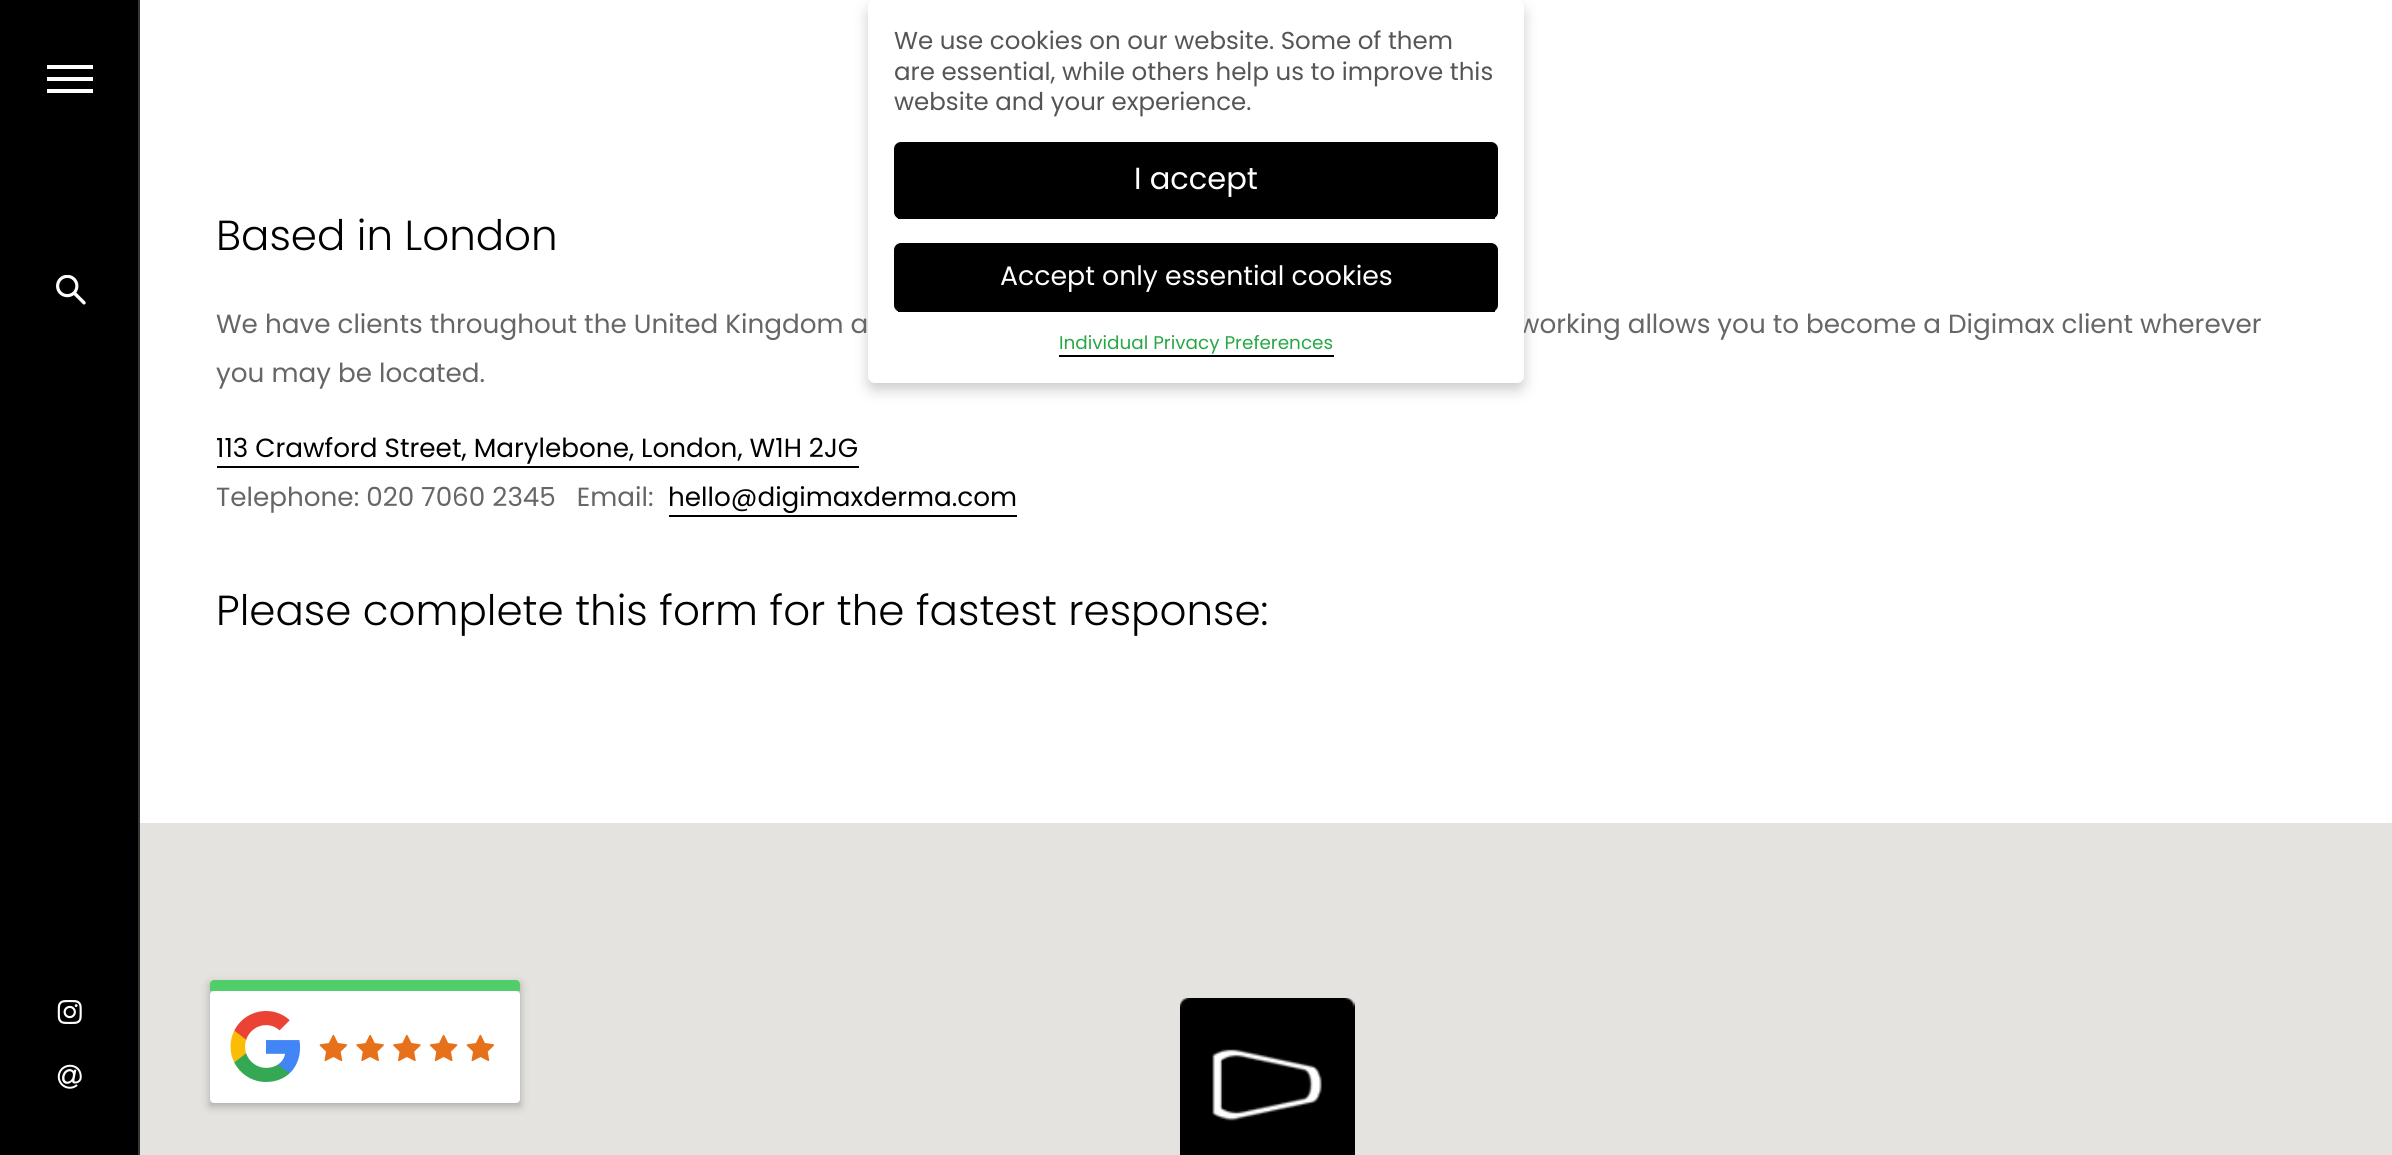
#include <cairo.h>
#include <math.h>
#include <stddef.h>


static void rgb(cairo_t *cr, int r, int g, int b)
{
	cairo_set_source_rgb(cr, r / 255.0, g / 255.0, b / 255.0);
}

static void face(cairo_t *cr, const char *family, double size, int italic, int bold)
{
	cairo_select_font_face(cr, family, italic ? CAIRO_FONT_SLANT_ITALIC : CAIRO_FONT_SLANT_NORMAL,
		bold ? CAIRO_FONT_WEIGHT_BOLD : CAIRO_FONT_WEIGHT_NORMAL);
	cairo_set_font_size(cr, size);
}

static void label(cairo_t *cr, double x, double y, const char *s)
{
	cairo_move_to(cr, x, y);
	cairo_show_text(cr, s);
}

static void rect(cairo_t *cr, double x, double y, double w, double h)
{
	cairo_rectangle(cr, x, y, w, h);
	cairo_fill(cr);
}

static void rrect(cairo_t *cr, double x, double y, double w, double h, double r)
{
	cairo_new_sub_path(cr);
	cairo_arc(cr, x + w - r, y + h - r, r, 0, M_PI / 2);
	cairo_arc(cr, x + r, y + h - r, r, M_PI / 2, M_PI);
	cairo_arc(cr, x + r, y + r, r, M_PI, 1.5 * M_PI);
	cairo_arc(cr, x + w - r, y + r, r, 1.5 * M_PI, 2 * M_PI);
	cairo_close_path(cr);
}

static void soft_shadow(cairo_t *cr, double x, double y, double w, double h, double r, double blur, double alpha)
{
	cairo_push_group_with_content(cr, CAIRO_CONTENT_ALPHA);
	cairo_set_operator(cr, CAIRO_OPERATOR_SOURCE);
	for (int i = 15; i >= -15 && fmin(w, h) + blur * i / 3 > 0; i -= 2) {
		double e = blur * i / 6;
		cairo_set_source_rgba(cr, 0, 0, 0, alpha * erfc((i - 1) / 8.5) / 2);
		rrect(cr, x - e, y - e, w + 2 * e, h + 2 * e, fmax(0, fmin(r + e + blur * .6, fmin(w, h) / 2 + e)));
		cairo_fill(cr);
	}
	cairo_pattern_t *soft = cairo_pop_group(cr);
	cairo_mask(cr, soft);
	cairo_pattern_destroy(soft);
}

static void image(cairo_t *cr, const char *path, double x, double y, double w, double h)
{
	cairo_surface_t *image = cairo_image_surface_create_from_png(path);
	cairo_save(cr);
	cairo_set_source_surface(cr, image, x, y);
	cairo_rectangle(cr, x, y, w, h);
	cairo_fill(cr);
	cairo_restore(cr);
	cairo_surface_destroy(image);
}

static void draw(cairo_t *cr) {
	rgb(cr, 255, 255, 255);
	cairo_paint(cr);
	rgb(cr, 0, 0, 0);
	soft_shadow(cr, 868, 7, 656, 383, 7, 7, 0.2);
	face(cr, "Poppins", 26.25, 0, 0);
	rgb(cr, 102, 102, 102);
	label(cr, 1518, 333, "working allows you to become a Digimax client wherever");
	rgb(cr, 255, 255, 255);
	rrect(cr, 868, 0, 656, 383, 7);
	cairo_fill(cr);
	face(cr, "Poppins", 24.5, 0, 0);
	rgb(cr, 85, 85, 85);
	label(cr, 894, 49, "We use cookies on our website. Some of them");
	label(cr, 894, 80, "are essential, while others help us to improve this");
	label(cr, 894, 110, "website and your experience.");
	rgb(cr, 0, 0, 0);
	rrect(cr, 894, 142, 604, 77, 7);
	cairo_fill(cr);
	rect(cr, 898, 217, 597, 2);
	face(cr, "Poppins", 30.5, 0, 0);
	rgb(cr, 255, 255, 255);
	label(cr, 1134, 189, "I accept");
	rgb(cr, 0, 0, 0);
	rrect(cr, 894, 243, 604, 69, 7);
	cairo_fill(cr);
	rect(cr, 898, 310, 597, 2);
	face(cr, "Poppins", 26.75, 0, 0);
	rgb(cr, 255, 255, 255);
	label(cr, 1000, 285, "Accept only essential cookies");
	face(cr, "Poppins", 18.4, 0, 0);
	rgb(cr, 40, 167, 69);
	label(cr, 1059, 349, "Individual Privacy Preferences");
	rgb(cr, 0, 0, 0);
	rect(cr, 1059, 355, 275, 2);
	rect(cr, 0, 0, 138, 1155);
	rgb(cr, 255, 255, 255);
	rect(cr, 47, 77, 46, 4);
	rect(cr, 47, 65, 46, 4);
	rect(cr, 47, 89, 46, 4);
	image(cr, "image0.png", 56, 275, 30, 30);
	image(cr, "image1.png", 57, 1000, 25, 24);
	image(cr, "image2.png", 57, 1064, 25, 25);
	rgb(cr, 54, 54, 54);
	rect(cr, 138, 0, 2, 1155);
	face(cr, "Poppins Light", 42, 0, 0);
	rgb(cr, 0, 0, 0);
	label(cr, 216, 250, "Based in London");
	face(cr, "Poppins", 26.25, 0, 0);
	rgb(cr, 102, 102, 102);
	label(cr, 216, 333, "We have clients throughout the United Kingdom a");
	label(cr, 216, 382, "you may be located.");
	rgb(cr, 0, 0, 0);
	label(cr, 216, 457, "113 Crawford Street, Marylebone, London, W1H 2JG");
	rect(cr, 217, 466, 642, 2);
	rgb(cr, 102, 102, 102);
	label(cr, 216, 506, "Telephone: 020 7060 2345   Email:");
	rgb(cr, 0, 0, 0);
	label(cr, 668, 506, "hello@digimaxderma.com");
	rect(cr, 669, 515, 348, 2);
	face(cr, "Poppins Light", 42, 0, 0);
	label(cr, 216, 625, "Please complete this form for the fastest response:");
	rgb(cr, 229, 227, 223);
	rect(cr, 140, 823, 2252, 332);
	image(cr, "image3.png", 1180, 998, 175, 157);
	rgb(cr, 0, 0, 0);
	soft_shadow(cr, 210, 984, 310, 122, 0, 4.5, 0.26);
	rgb(cr, 79, 206, 106);
	cairo_new_path(cr);
	cairo_move_to(cr, 214, 980);
	cairo_line_to(cr, 516, 980);
	cairo_curve_to(cr, 518, 980, 520, 982, 520, 984);
	cairo_line_to(cr, 520, 991);
	cairo_line_to(cr, 210, 991);
	cairo_line_to(cr, 210, 984);
	cairo_curve_to(cr, 210, 982, 212, 980, 214, 980);
	cairo_close_path(cr);
	cairo_fill(cr);
	rgb(cr, 255, 255, 255);
	rrect(cr, 210, 991, 310, 112, 4);
	cairo_fill(cr);
	image(cr, "image4.png", 230, 1011, 71, 71);
	image(cr, "image5.png", 319, 1034, 29, 28);
	image(cr, "image6.png", 356, 1034, 28, 28);
	image(cr, "image7.png", 393, 1034, 28, 28);
	image(cr, "image8.png", 429, 1034, 29, 28);
	image(cr, "image5.png", 466, 1034, 29, 28);
}

int main(void) {
	cairo_surface_t *surface = cairo_image_surface_create(CAIRO_FORMAT_RGB24, 2392, 1155);
	cairo_t *cr = cairo_create(surface);
	cairo_font_options_t *options = cairo_font_options_create();
	cairo_font_options_set_hint_metrics(options, CAIRO_HINT_METRICS_OFF);
	cairo_font_options_set_hint_style(options, CAIRO_HINT_STYLE_NONE);
	cairo_set_font_options(cr, options);
	cairo_set_miter_limit(cr, 4);
	draw(cr);
	cairo_surface_write_to_png(surface, "render.png");
	cairo_font_options_destroy(options);
	cairo_destroy(cr);
	cairo_surface_destroy(surface);
	return 0;
}
